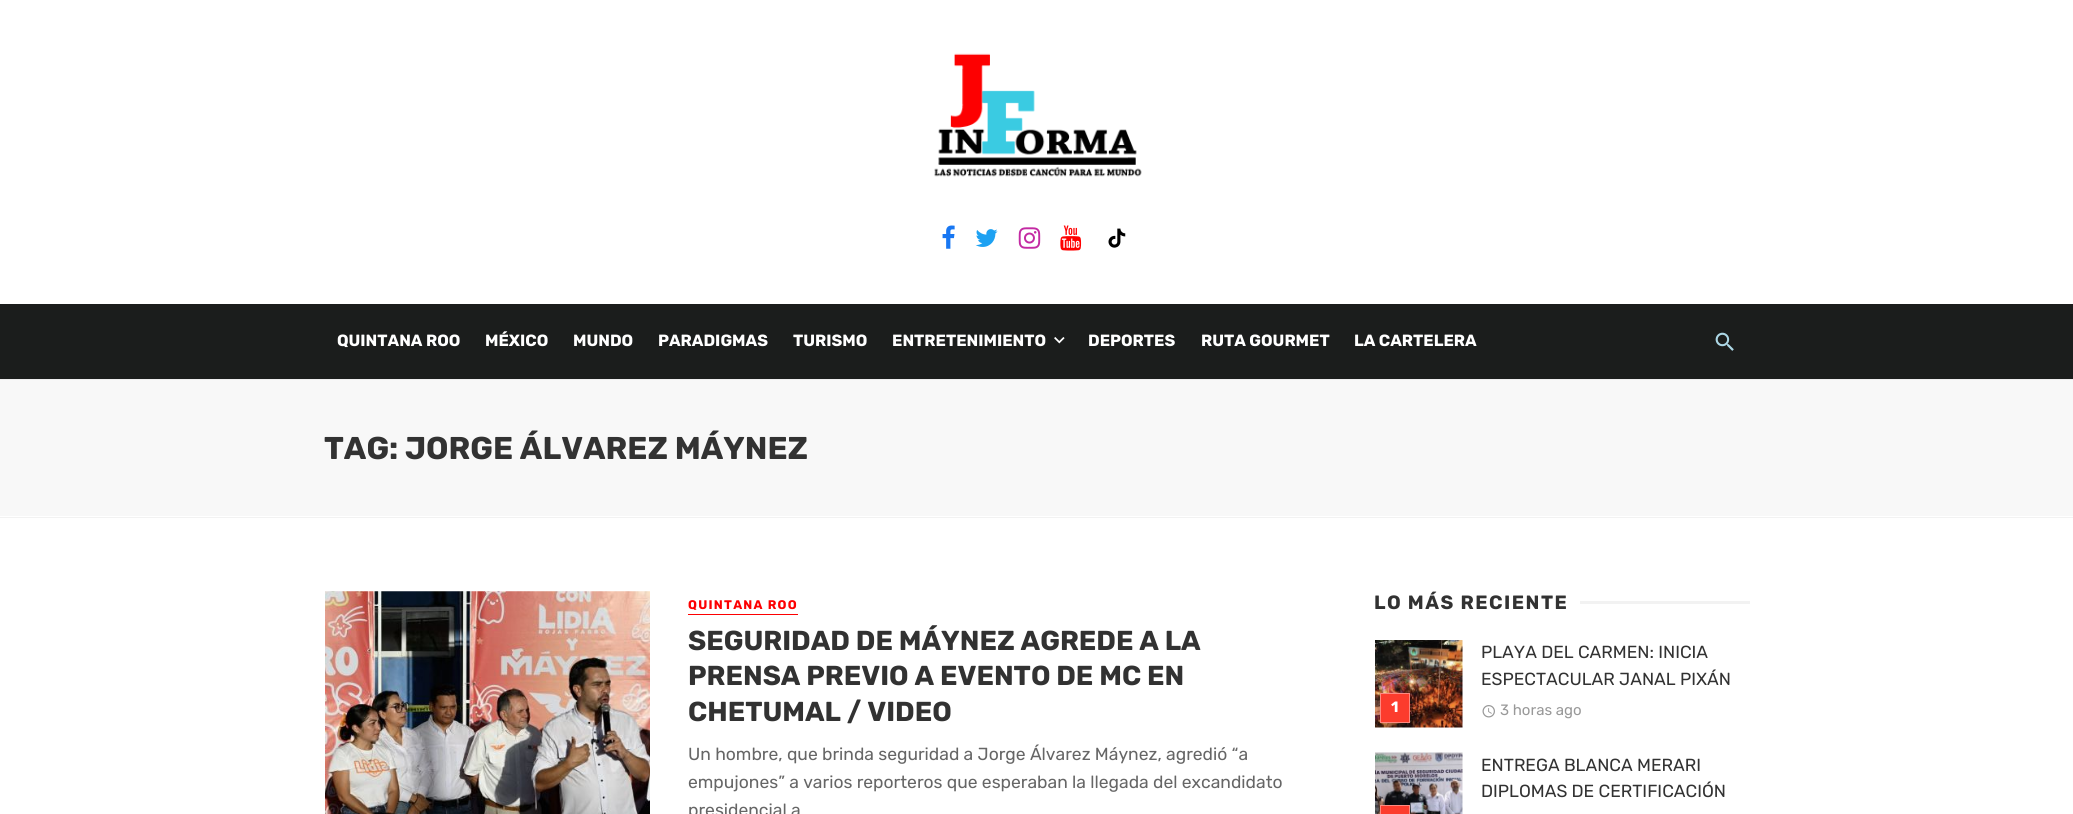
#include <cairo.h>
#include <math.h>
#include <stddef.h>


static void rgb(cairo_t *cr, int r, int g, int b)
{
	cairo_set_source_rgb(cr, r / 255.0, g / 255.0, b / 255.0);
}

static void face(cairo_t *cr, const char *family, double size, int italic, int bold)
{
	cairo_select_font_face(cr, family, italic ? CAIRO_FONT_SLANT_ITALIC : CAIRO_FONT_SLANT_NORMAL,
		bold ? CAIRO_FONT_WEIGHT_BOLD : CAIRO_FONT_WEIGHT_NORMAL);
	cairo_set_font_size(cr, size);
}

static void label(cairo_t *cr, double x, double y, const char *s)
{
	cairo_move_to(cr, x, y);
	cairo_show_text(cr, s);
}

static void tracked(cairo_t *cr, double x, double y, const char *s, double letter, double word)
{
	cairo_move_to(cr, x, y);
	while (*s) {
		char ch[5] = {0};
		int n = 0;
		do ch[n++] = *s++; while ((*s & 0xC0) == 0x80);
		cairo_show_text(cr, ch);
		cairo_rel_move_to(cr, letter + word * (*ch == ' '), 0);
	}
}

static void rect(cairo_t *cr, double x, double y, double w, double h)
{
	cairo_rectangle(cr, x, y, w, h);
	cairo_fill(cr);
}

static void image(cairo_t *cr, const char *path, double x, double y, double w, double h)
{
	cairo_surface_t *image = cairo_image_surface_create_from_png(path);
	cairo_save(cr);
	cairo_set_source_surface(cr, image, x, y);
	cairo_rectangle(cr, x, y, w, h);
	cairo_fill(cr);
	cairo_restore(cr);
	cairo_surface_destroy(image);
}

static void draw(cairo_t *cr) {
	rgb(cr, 255, 255, 255);
	cairo_paint(cr);
	cairo_rectangle(cr, -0.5, 378.5, 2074, 139);
	rgb(cr, 242, 242, 242);
	cairo_set_line_width(cr, 1);
	cairo_stroke(cr);
	rgb(cr, 238, 238, 238);
	cairo_new_path(cr);
	cairo_move_to(cr, 0, 379);
	cairo_line_to(cr, 0, 380);
	cairo_line_to(cr, 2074, 380);
	cairo_line_to(cr, 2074, 1);
	cairo_line_to(cr, 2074, 379);
	cairo_close_path(cr);
	cairo_fill(cr);
	image(cr, "image0.png", 934, 53, 208, 124);
	image(cr, "image1.png", 942, 225, 13, 24);
	image(cr, "image2.png", 975, 229, 23, 18);
	image(cr, "image3.png", 1018, 227, 23, 22);
	image(cr, "image4.png", 1060, 225, 22, 26);
	image(cr, "image5.png", 1108, 228, 18, 20);
	rgb(cr, 27, 29, 28);
	rect(cr, 0, 304, 2073, 75);
	face(cr, "Rubik", 16.25, 0, 1);
	rgb(cr, 255, 255, 255);
	label(cr, 337, 346, "QUINTANA ROO");
	label(cr, 485, 346, "MÉXICO");
	label(cr, 573, 346, "MUNDO");
	label(cr, 658, 346, "PARADIGMAS");
	label(cr, 793, 346, "TURISMO");
	label(cr, 892, 346, "ENTRETENIMIENTO");
	image(cr, "image6.png", 1054, 337, 11, 7);
	label(cr, 1088, 346, "DEPORTES");
	label(cr, 1201, 346, "RUTA GOURMET");
	label(cr, 1354, 346, "LA CARTELERA");
	image(cr, "image7.png", 1715, 332, 19, 19);
	rgb(cr, 248, 248, 248);
	rect(cr, 0, 380, 2073, 136);
	face(cr, "Rubik", 31.5, 0, 1);
	rgb(cr, 50, 50, 50);
	label(cr, 324, 459, "TAG: JORGE ÁLVAREZ MÁYNEZ");
	image(cr, "image8.png", 325, 591, 325, 223);
	rgb(cr, 253, 0, 1);
	rect(cr, 688, 614, 110, 1);
	face(cr, "Rubik", 12.5, 0, 1);
	tracked(cr, 688, 609, "QUINTANA ROO", 1.25, 0);
	face(cr, "Rubik", 27.4, 0, 1);
	rgb(cr, 50, 50, 50);
	label(cr, 688, 650, "SEGURIDAD DE MÁYNEZ AGREDE A LA");
	label(cr, 688, 685, "PRENSA PREVIO A EVENTO DE MC EN");
	label(cr, 688, 721, "CHETUMAL / VIDEO");
	face(cr, "Rubik", 17.5, 0, 0);
	rgb(cr, 102, 102, 102);
	label(cr, 688, 760, "Un hombre, que brinda seguridad a Jorge Álvarez Máynez, agredió “a");
	label(cr, 688, 788, "empujones” a varios reporteros que esperaban la llegada del excandidato");
	label(cr, 688, 816, "presidencial a");
	face(cr, "Rubik", 19.25, 0, 1);
	rgb(cr, 50, 50, 50);
	tracked(cr, 1374, 609, "LO MÁS RECIENTE", 1.5, 0);
	rgb(cr, 242, 242, 242);
	rect(cr, 1580, 601, 170, 3);
	image(cr, "image9.png", 1375, 640, 88, 88);
	rgb(cr, 252, 60, 45);
	cairo_rectangle(cr, 1380.5, 693.5, 29, 29);
	cairo_fill_preserve(cr);
	rgb(cr, 253, 138, 129);
	cairo_stroke(cr);
	face(cr, "Rubik", 15, 0, 1);
	rgb(cr, 255, 255, 255);
	label(cr, 1391, 712, "1");
	face(cr, "Rubik", 17.5, 0, 0);
	rgb(cr, 50, 50, 50);
	label(cr, 1481, 658, "PLAYA DEL CARMEN: INICIA");
	label(cr, 1481, 685, "ESPECTACULAR JANAL PIXÁN");
	image(cr, "image10.png", 1482, 705, 13, 13);
	face(cr, "Rubik", 15, 0, 0);
	rgb(cr, 153, 153, 153);
	label(cr, 1500, 715, "3 horas ago");
	image(cr, "image11.png", 1375, 752, 88, 62);
	rgb(cr, 252, 60, 45);
	cairo_rectangle(cr, 1380.5, 805.5, 29, 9);
	cairo_fill_preserve(cr);
	rgb(cr, 253, 138, 129);
	cairo_stroke(cr);
	face(cr, "Rubik", 17.5, 0, 0);
	rgb(cr, 50, 50, 50);
	label(cr, 1481, 771, "ENTREGA BLANCA MERARI");
	label(cr, 1481, 797, "DIPLOMAS DE CERTIFICACIÓN");
}

int main(void) {
	cairo_surface_t *surface = cairo_image_surface_create(CAIRO_FORMAT_RGB24, 2073, 814);
	cairo_t *cr = cairo_create(surface);
	cairo_font_options_t *options = cairo_font_options_create();
	cairo_font_options_set_hint_metrics(options, CAIRO_HINT_METRICS_OFF);
	cairo_font_options_set_hint_style(options, CAIRO_HINT_STYLE_NONE);
	cairo_set_font_options(cr, options);
	cairo_set_miter_limit(cr, 4);
	draw(cr);
	cairo_surface_write_to_png(surface, "render.png");
	cairo_font_options_destroy(options);
	cairo_destroy(cr);
	cairo_surface_destroy(surface);
	return 0;
}
